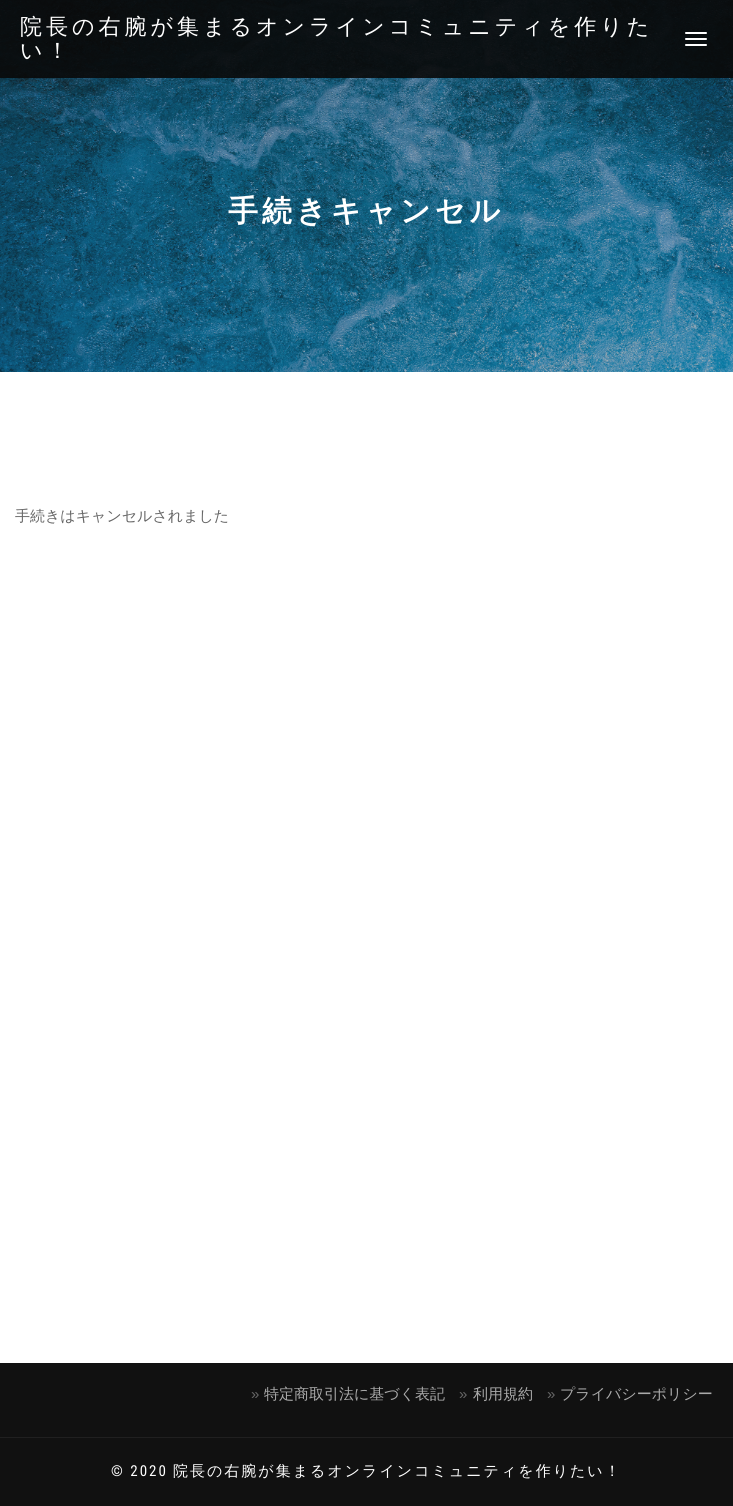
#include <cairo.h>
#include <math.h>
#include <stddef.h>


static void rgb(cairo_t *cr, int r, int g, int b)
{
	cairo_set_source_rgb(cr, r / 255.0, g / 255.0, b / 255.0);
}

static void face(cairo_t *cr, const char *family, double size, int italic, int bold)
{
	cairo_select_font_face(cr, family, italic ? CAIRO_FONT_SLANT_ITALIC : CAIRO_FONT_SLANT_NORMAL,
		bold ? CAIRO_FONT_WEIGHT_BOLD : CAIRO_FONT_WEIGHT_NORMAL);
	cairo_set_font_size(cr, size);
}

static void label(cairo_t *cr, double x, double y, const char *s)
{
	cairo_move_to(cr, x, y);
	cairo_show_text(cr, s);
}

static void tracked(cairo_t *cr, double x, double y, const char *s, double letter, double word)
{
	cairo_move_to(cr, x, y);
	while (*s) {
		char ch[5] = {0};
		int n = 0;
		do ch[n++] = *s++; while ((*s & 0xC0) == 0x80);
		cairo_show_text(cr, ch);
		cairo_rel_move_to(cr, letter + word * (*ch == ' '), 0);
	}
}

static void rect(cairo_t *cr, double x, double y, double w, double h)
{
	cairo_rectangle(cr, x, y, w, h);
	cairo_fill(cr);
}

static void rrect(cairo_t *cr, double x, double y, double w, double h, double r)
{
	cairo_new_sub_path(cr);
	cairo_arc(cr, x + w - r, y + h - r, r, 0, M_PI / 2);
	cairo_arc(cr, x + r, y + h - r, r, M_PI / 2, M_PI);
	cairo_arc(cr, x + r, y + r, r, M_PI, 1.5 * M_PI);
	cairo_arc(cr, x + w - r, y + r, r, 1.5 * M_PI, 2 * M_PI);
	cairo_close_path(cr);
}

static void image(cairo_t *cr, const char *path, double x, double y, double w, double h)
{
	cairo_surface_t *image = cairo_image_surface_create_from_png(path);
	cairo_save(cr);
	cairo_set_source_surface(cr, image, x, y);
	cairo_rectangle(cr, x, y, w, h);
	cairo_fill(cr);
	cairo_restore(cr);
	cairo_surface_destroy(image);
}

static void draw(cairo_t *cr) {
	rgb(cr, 255, 255, 255);
	cairo_paint(cr);
	image(cr, "image0.png", 0, 0, 733, 372);
	cairo_set_source_rgba(cr, 0.039, 0.039, 0.039, 0.9);
	rect(cr, 0, 0, 733, 78);
	face(cr, "WenQuanYi Zen Hei Medium", 22, 0, 0);
	rgb(cr, 255, 255, 255);
	tracked(cr, 20, 34, "院長の右腕が集まるオンラインコミュニティを作りた", 4, 0);
	tracked(cr, 20, 58, "い！", 4, 0);
	rrect(cr, 685, 32, 22, 2, 1);
	cairo_fill(cr);
	rrect(cr, 685, 38, 22, 2, 1);
	cairo_fill(cr);
	rrect(cr, 685, 44, 22, 2, 1);
	cairo_fill(cr);
	face(cr, "WenQuanYi Zen Hei", 30, 0, 1);
	tracked(cr, 228, 221, "手続きキャンセル", 4, 0);
	face(cr, "WenQuanYi Zen Hei Medium", 15, 0, 0);
	rgb(cr, 102, 102, 102);
	label(cr, 15, 521, "手続きはキャンセルされました");
	rgb(cr, 17, 17, 17);
	rect(cr, 0, 1363, 733, 74);
	face(cr, "Liberation Sans", 15, 0, 0);
	rgb(cr, 102, 102, 102);
	label(cr, 251, 1399, "»");
	face(cr, "WenQuanYi Zen Hei Medium", 15, 0, 0);
	rgb(cr, 170, 170, 170);
	label(cr, 264, 1399, "特定商取引法に基づく表記");
	face(cr, "Liberation Sans", 15, 0, 0);
	rgb(cr, 102, 102, 102);
	label(cr, 459, 1399, "»");
	face(cr, "WenQuanYi Zen Hei Medium", 15, 0, 0);
	rgb(cr, 170, 170, 170);
	label(cr, 473, 1399, "利⽤規約");
	face(cr, "Liberation Sans", 15, 0, 0);
	rgb(cr, 102, 102, 102);
	label(cr, 547, 1399, "»");
	face(cr, "WenQuanYi Zen Hei Medium", 15, 0, 0);
	rgb(cr, 170, 170, 170);
	label(cr, 560, 1399, "プライバシーポリシー");
	rgb(cr, 17, 17, 17);
	rect(cr, 0, 1438, 733, 68);
	rgb(cr, 32, 32, 32);
	rect(cr, 0, 1437, 733, 1);
	face(cr, "Roboto Condensed", 15, 0, 0);
	rgb(cr, 255, 255, 255);
	tracked(cr, 111, 1476, "© 2020", 2, 0);
	face(cr, "WenQuanYi Zen Hei Medium", 15, 0, 0);
	tracked(cr, 173, 1476, "院長の右腕が集まるオンラインコミュニティを作りたい！", 2, 0);
}

int main(void) {
	cairo_surface_t *surface = cairo_image_surface_create(CAIRO_FORMAT_RGB24, 733, 1506);
	cairo_t *cr = cairo_create(surface);
	cairo_font_options_t *options = cairo_font_options_create();
	cairo_font_options_set_hint_metrics(options, CAIRO_HINT_METRICS_OFF);
	cairo_font_options_set_hint_style(options, CAIRO_HINT_STYLE_NONE);
	cairo_set_font_options(cr, options);
	cairo_set_miter_limit(cr, 4);
	draw(cr);
	cairo_surface_write_to_png(surface, "render.png");
	cairo_font_options_destroy(options);
	cairo_destroy(cr);
	cairo_surface_destroy(surface);
	return 0;
}
